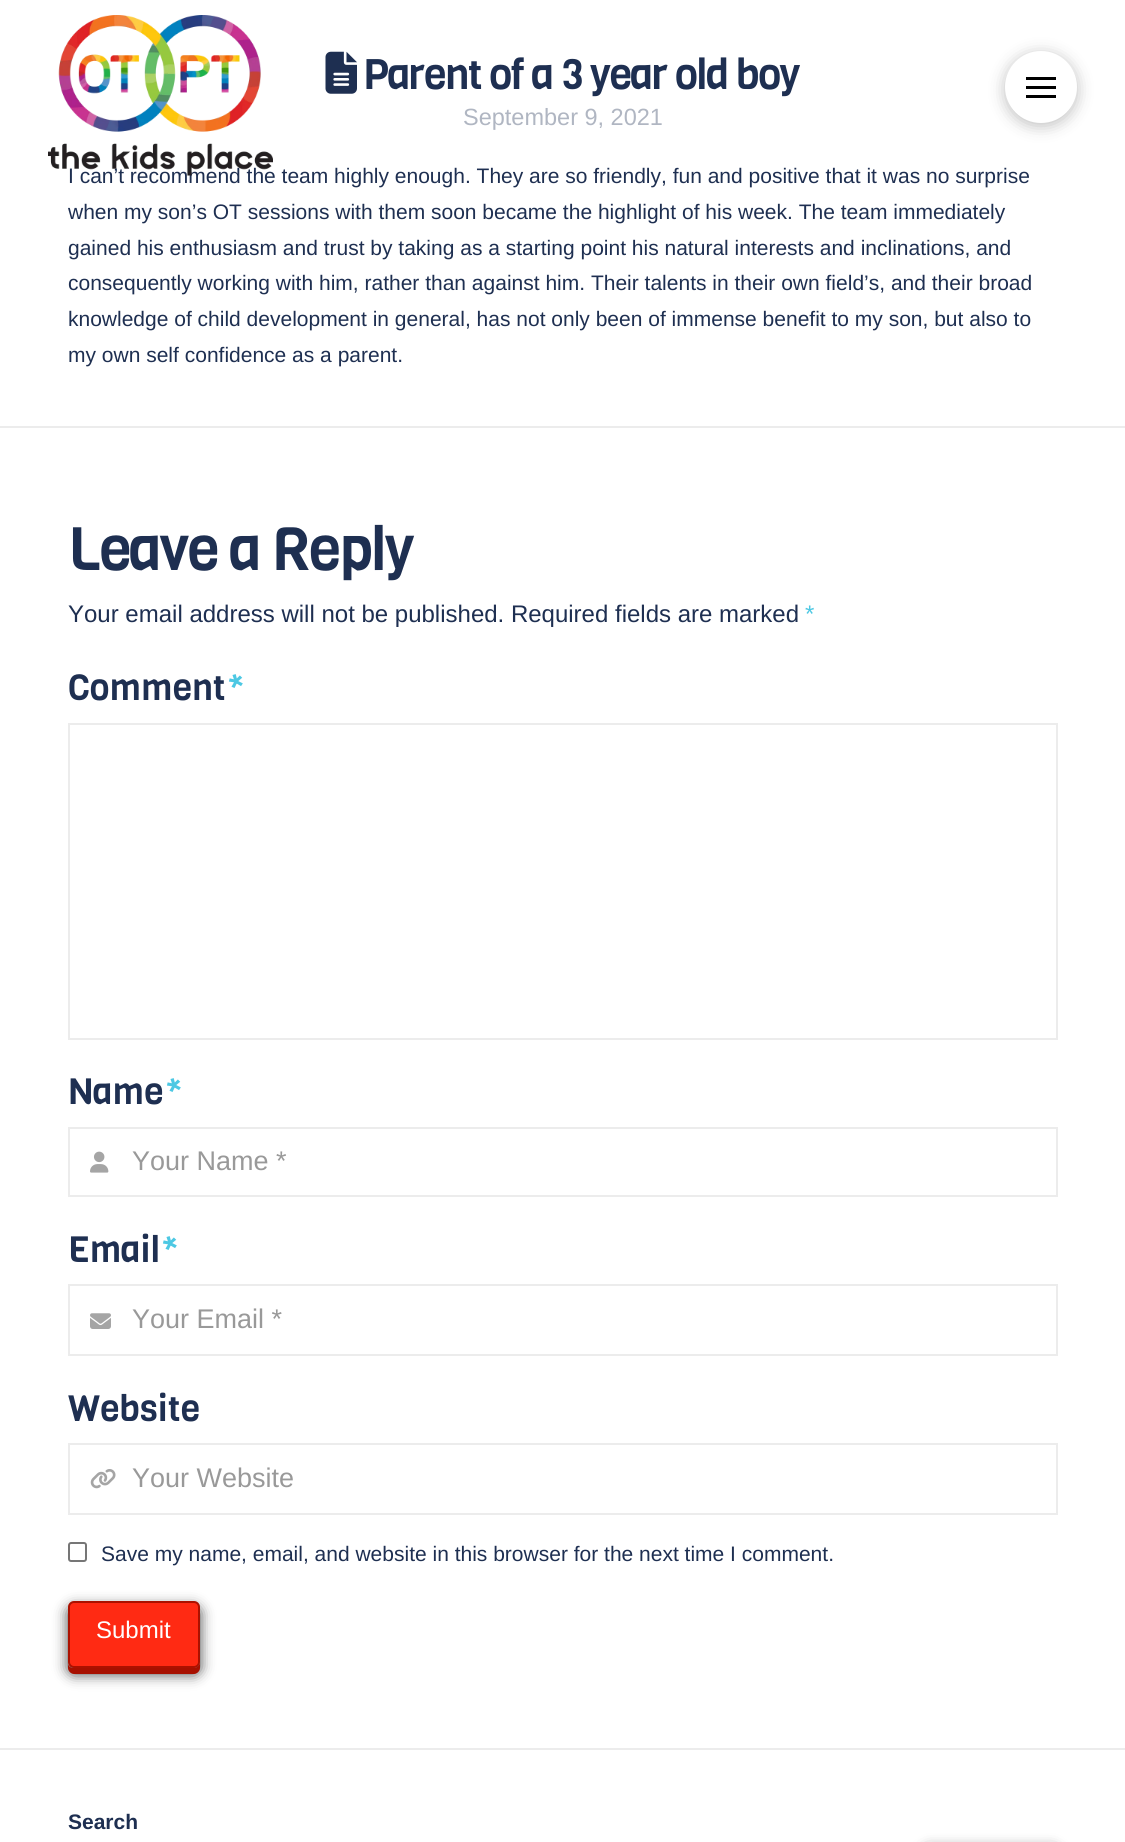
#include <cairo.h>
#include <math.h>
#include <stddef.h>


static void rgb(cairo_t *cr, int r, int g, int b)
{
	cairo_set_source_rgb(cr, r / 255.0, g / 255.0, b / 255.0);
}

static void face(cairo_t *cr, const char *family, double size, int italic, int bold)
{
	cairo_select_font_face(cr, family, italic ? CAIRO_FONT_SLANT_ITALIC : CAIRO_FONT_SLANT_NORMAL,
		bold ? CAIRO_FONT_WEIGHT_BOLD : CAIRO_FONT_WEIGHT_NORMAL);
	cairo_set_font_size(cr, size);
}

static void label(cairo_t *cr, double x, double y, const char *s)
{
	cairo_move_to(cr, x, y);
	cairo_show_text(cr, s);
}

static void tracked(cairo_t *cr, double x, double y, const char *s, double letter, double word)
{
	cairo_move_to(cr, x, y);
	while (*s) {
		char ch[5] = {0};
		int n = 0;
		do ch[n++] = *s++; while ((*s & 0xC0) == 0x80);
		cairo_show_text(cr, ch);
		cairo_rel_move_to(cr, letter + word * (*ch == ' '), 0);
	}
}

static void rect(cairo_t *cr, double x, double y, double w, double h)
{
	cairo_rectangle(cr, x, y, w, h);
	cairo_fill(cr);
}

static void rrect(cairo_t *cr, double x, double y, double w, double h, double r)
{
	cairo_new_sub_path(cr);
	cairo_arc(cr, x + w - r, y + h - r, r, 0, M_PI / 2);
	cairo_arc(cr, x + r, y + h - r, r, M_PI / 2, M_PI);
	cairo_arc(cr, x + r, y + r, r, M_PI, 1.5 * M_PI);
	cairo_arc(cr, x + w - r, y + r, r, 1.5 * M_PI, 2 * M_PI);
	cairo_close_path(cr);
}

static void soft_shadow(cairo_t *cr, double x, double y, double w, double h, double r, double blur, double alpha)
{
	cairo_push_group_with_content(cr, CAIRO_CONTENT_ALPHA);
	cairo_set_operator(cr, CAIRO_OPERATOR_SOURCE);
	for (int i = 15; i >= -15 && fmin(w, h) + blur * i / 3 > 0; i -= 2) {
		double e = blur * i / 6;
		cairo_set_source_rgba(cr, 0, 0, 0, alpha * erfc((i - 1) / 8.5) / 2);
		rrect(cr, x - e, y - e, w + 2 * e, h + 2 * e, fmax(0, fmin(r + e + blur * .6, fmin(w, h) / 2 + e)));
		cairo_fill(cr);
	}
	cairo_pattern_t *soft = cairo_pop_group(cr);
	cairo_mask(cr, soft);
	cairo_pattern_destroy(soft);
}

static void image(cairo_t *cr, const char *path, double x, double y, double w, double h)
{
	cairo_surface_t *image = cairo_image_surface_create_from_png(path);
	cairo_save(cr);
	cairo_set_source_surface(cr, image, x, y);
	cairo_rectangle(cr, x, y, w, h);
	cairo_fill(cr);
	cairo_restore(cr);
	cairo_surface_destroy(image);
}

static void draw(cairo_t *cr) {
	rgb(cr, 255, 255, 255);
	cairo_paint(cr);
	face(cr, "Liberation Sans", 21, 0, 0);
	rgb(cr, 30, 47, 81);
	label(cr, 68, 183, "I can’t recommend the team highly enough. They are so friendly, fun and positive that it was no surprise");
	image(cr, "image0.png", 48, 15, 225, 161);
	rgb(cr, 0, 0, 0);
	soft_shadow(cr, 1005, 54, 72, 72, 36, 8, 0.25);
	rgb(cr, 255, 255, 255);
	cairo_arc(cr, 1041, 87, 36, 0, 2 * M_PI);
	cairo_fill(cr);
	rgb(cr, 0, 0, 0);
	rect(cr, 1026, 77, 30, 3);
	rect(cr, 1026, 86, 30, 3);
	rect(cr, 1026, 95, 30, 3);
	rgb(cr, 236, 236, 236);
	rect(cr, 0, 426, 1125, 2);
	image(cr, "image1.png", 325, 51, 32, 43);
	face(cr, "Viga", 42, 0, 0);
	rgb(cr, 30, 47, 81);
	tracked(cr, 363, 89, "Parent of a 3 year old boy", -1.5, 0);
	face(cr, "Liberation Sans", 23.5, 0, 0);
	rgb(cr, 176, 182, 194);
	label(cr, 463, 125, "September 9, 2021");
	face(cr, "Liberation Sans", 21, 0, 0);
	rgb(cr, 30, 47, 81);
	label(cr, 68, 219, "when my son’s OT sessions with them soon became the highlight of his week. The team immediately");
	label(cr, 68, 255, "gained his enthusiasm and trust by taking as a starting point his natural interests and inclinations, and");
	label(cr, 68, 290, "consequently working with him, rather than against him. Their talents in their own field’s, and their broad");
	label(cr, 68, 326, "knowledge of child development in general, has not only been of immense benefit to my son, but also to");
	label(cr, 68, 362, "my own self confidence as a parent.");
	face(cr, "Viga", 60, 0, 0);
	tracked(cr, 68, 570, "Leave a Reply", -2.1, 0);
	face(cr, "Liberation Sans", 24, 0, 0);
	label(cr, 68, 622, "Your email address will not be published. Required fields are marked");
	rgb(cr, 77, 200, 227);
	label(cr, 805, 622, "*");
	face(cr, "Viga", 36, 0, 0);
	rgb(cr, 30, 47, 81);
	label(cr, 68, 700, "Comment");
	rgb(cr, 77, 200, 227);
	label(cr, 227, 700, "*");
	cairo_rectangle(cr, 69, 724, 988, 315);
	rgb(cr, 236, 236, 236);
	cairo_stroke(cr);
	rgb(cr, 30, 47, 81);
	label(cr, 68, 1104, "Name");
	rgb(cr, 77, 200, 227);
	label(cr, 165, 1104, "*");
	cairo_rectangle(cr, 69, 1128, 988, 68);
	rgb(cr, 236, 236, 236);
	cairo_stroke(cr);
	image(cr, "image2.png", 90, 1151, 19, 22);
	face(cr, "Liberation Sans", 27, 0, 0);
	rgb(cr, 153, 153, 153);
	label(cr, 132, 1170, "Your Name *");
	face(cr, "Viga", 36, 0, 0);
	rgb(cr, 30, 47, 81);
	label(cr, 68, 1262, "Email");
	rgb(cr, 77, 200, 227);
	label(cr, 161, 1262, "*");
	cairo_rectangle(cr, 69, 1285, 988, 70);
	rgb(cr, 236, 236, 236);
	cairo_stroke(cr);
	image(cr, "image3.png", 90, 1313, 21, 16);
	face(cr, "Liberation Sans", 27, 0, 0);
	rgb(cr, 153, 153, 153);
	label(cr, 132, 1328, "Your Email *");
	face(cr, "Viga", 36, 0, 0);
	rgb(cr, 30, 47, 81);
	label(cr, 68, 1421, "Website");
	cairo_rectangle(cr, 69, 1444, 988, 70);
	rgb(cr, 236, 236, 236);
	cairo_stroke(cr);
	image(cr, "image4.png", 90, 1469, 26, 20);
	face(cr, "Liberation Sans", 27, 0, 0);
	rgb(cr, 153, 153, 153);
	label(cr, 132, 1487, "Your Website");
	rrect(cr, 69, 1543, 17, 18, 2);
	rgb(cr, 118, 118, 118);
	cairo_stroke(cr);
	face(cr, "Liberation Sans", 21, 0, 0);
	rgb(cr, 30, 47, 81);
	label(cr, 101, 1561, "Save my name, email, and website in this browser for the next time I comment.");
	rgb(cr, 0, 0, 0);
	soft_shadow(cr, 68, 1607, 132, 67, 6, 7, 0.75);
	rgb(cr, 167, 16, 0);
	cairo_new_path(cr);
	cairo_move_to(cr, 68, 1664);
	cairo_line_to(cr, 68, 1668);
	cairo_curve_to(cr, 68, 1671, 71, 1674, 74, 1674);
	cairo_line_to(cr, 194, 1674);
	cairo_curve_to(cr, 197, 1674, 200, 1671, 200, 1668);
	cairo_line_to(cr, 200, 1613);
	cairo_line_to(cr, 200, 1611);
	cairo_line_to(cr, 200, 1662);
	cairo_curve_to(cr, 200, 1665, 197, 1668, 194, 1668);
	cairo_line_to(cr, 74, 1668);
	cairo_curve_to(cr, 71, 1668, 69, 1667, 68, 1664);
	cairo_close_path(cr);
	cairo_fill(cr);
	rgb(cr, 255, 42, 19);
	rrect(cr, 69, 1602, 130, 65, 5);
	cairo_fill_preserve(cr);
	rgb(cr, 172, 17, 0);
	cairo_stroke(cr);
	face(cr, "Liberation Sans", 24, 0, 0);
	rgb(cr, 255, 255, 255);
	label(cr, 96, 1638, "Submit");
	rgb(cr, 236, 236, 236);
	rect(cr, 0, 1748, 1125, 2);
	face(cr, "Liberation Sans", 21, 0, 1);
	rgb(cr, 30, 47, 81);
	label(cr, 68, 1829, "Search");
	rgb(cr, 0, 0, 0);
	soft_shadow(cr, 924, 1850, 134, 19, 6, 7, 0.75);
}

int main(void) {
	cairo_surface_t *surface = cairo_image_surface_create(CAIRO_FORMAT_RGB24, 1125, 1842);
	cairo_t *cr = cairo_create(surface);
	cairo_font_options_t *options = cairo_font_options_create();
	cairo_font_options_set_hint_metrics(options, CAIRO_HINT_METRICS_OFF);
	cairo_font_options_set_hint_style(options, CAIRO_HINT_STYLE_NONE);
	cairo_set_font_options(cr, options);
	cairo_set_miter_limit(cr, 4);
	draw(cr);
	cairo_surface_write_to_png(surface, "render.png");
	cairo_font_options_destroy(options);
	cairo_destroy(cr);
	cairo_surface_destroy(surface);
	return 0;
}
